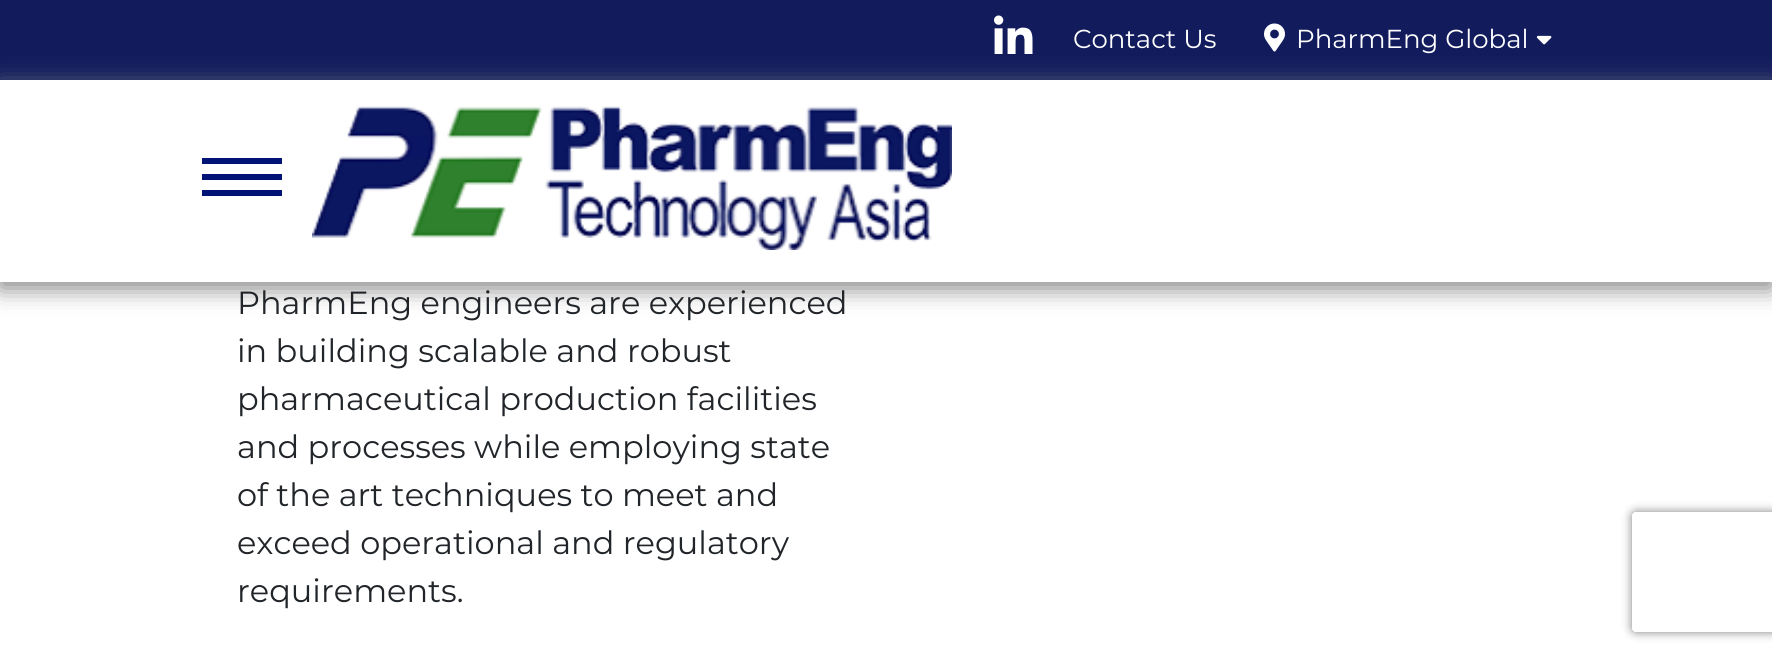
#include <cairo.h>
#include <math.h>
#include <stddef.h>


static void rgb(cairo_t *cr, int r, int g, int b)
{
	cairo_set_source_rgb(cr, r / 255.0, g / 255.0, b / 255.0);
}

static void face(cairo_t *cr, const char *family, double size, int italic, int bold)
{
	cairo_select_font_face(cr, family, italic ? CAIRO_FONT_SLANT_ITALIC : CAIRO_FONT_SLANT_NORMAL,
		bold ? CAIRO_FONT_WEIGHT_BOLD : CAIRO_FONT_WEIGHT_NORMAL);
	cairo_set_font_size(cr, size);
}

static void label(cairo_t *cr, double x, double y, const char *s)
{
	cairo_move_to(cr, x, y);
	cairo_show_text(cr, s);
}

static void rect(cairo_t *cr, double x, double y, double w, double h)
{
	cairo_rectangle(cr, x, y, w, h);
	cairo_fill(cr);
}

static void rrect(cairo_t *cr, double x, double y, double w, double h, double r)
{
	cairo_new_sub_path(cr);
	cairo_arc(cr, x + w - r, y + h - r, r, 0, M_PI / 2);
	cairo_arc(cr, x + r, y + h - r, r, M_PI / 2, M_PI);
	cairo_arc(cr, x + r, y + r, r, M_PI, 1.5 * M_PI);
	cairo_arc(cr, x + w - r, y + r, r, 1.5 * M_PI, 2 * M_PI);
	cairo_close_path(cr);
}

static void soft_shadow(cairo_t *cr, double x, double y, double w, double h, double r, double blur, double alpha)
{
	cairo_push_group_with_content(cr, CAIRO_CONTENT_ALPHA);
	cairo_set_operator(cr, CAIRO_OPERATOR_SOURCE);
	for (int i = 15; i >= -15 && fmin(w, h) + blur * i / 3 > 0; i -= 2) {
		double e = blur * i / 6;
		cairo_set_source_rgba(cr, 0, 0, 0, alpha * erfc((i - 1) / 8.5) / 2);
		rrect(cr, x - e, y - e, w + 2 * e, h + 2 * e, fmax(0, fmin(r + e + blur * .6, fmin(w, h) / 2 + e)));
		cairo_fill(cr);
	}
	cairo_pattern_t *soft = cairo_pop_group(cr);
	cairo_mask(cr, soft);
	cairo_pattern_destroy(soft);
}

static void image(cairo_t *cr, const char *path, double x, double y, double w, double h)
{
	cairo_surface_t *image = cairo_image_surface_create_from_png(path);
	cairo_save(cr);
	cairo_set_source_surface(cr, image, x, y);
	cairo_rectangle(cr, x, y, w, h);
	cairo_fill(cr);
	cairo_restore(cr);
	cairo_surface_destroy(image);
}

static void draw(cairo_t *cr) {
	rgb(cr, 255, 255, 255);
	cairo_paint(cr);
	rgb(cr, 18, 28, 93);
	rect(cr, 0, 0, 1772, 80);
	image(cr, "image0.png", 994, 15, 39, 39);
	face(cr, "Montserrat", 26, 0, 0);
	rgb(cr, 255, 255, 255);
	label(cr, 1073, 48, "Contact Us");
	image(cr, "image1.png", 1264, 23, 21, 29);
	label(cr, 1296, 48, "PharmEng Global");
	image(cr, "image2.png", 1536, 35, 16, 10);
	rgb(cr, 128, 128, 128);
	soft_shadow(cr, 0, 86, 1772, 202, 0, 12, 1);
	rgb(cr, 255, 255, 255);
	rect(cr, 0, 80, 1772, 202);
	rgb(cr, 1, 20, 117);
	rect(cr, 202, 158, 80, 6);
	rect(cr, 202, 174, 80, 6);
	rect(cr, 202, 190, 80, 6);
	image(cr, "image3.png", 312, 106, 640, 144);
	face(cr, "Montserrat", 32, 0, 0);
	rgb(cr, 33, 37, 41);
	label(cr, 237, 314, "PharmEng engineers are experienced");
	label(cr, 237, 362, "in building scalable and robust");
	label(cr, 237, 410, "pharmaceutical production facilities");
	label(cr, 237, 458, "and processes while employing state");
	label(cr, 237, 506, "of the art techniques to meet and");
	label(cr, 237, 554, "exceed operational and regulatory");
	label(cr, 237, 602, "requirements.");
	cairo_save(cr);
	cairo_set_fill_rule(cr, CAIRO_FILL_RULE_EVEN_ODD);
	cairo_new_path(cr);
	cairo_move_to(cr, 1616, 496);
	cairo_line_to(cr, 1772, 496);
	cairo_line_to(cr, 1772, 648);
	cairo_line_to(cr, 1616, 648);
	cairo_close_path(cr);
	cairo_move_to(cr, 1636, 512);
	cairo_line_to(cr, 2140, 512);
	cairo_curve_to(cr, 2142, 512, 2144, 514, 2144, 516);
	cairo_line_to(cr, 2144, 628);
	cairo_curve_to(cr, 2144, 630, 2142, 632, 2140, 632);
	cairo_line_to(cr, 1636, 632);
	cairo_curve_to(cr, 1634, 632, 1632, 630, 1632, 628);
	cairo_line_to(cr, 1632, 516);
	cairo_curve_to(cr, 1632, 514, 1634, 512, 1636, 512);
	cairo_close_path(cr);
	cairo_clip(cr);
	rgb(cr, 128, 128, 128);
	soft_shadow(cr, 1632, 512, 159, 120, 4, 5, 1);
	cairo_restore(cr);
}

int main(void) {
	cairo_surface_t *surface = cairo_image_surface_create(CAIRO_FORMAT_RGB24, 1772, 660);
	cairo_t *cr = cairo_create(surface);
	cairo_font_options_t *options = cairo_font_options_create();
	cairo_font_options_set_hint_metrics(options, CAIRO_HINT_METRICS_OFF);
	cairo_font_options_set_hint_style(options, CAIRO_HINT_STYLE_NONE);
	cairo_set_font_options(cr, options);
	cairo_set_miter_limit(cr, 4);
	draw(cr);
	cairo_surface_write_to_png(surface, "render.png");
	cairo_font_options_destroy(options);
	cairo_destroy(cr);
	cairo_surface_destroy(surface);
	return 0;
}
